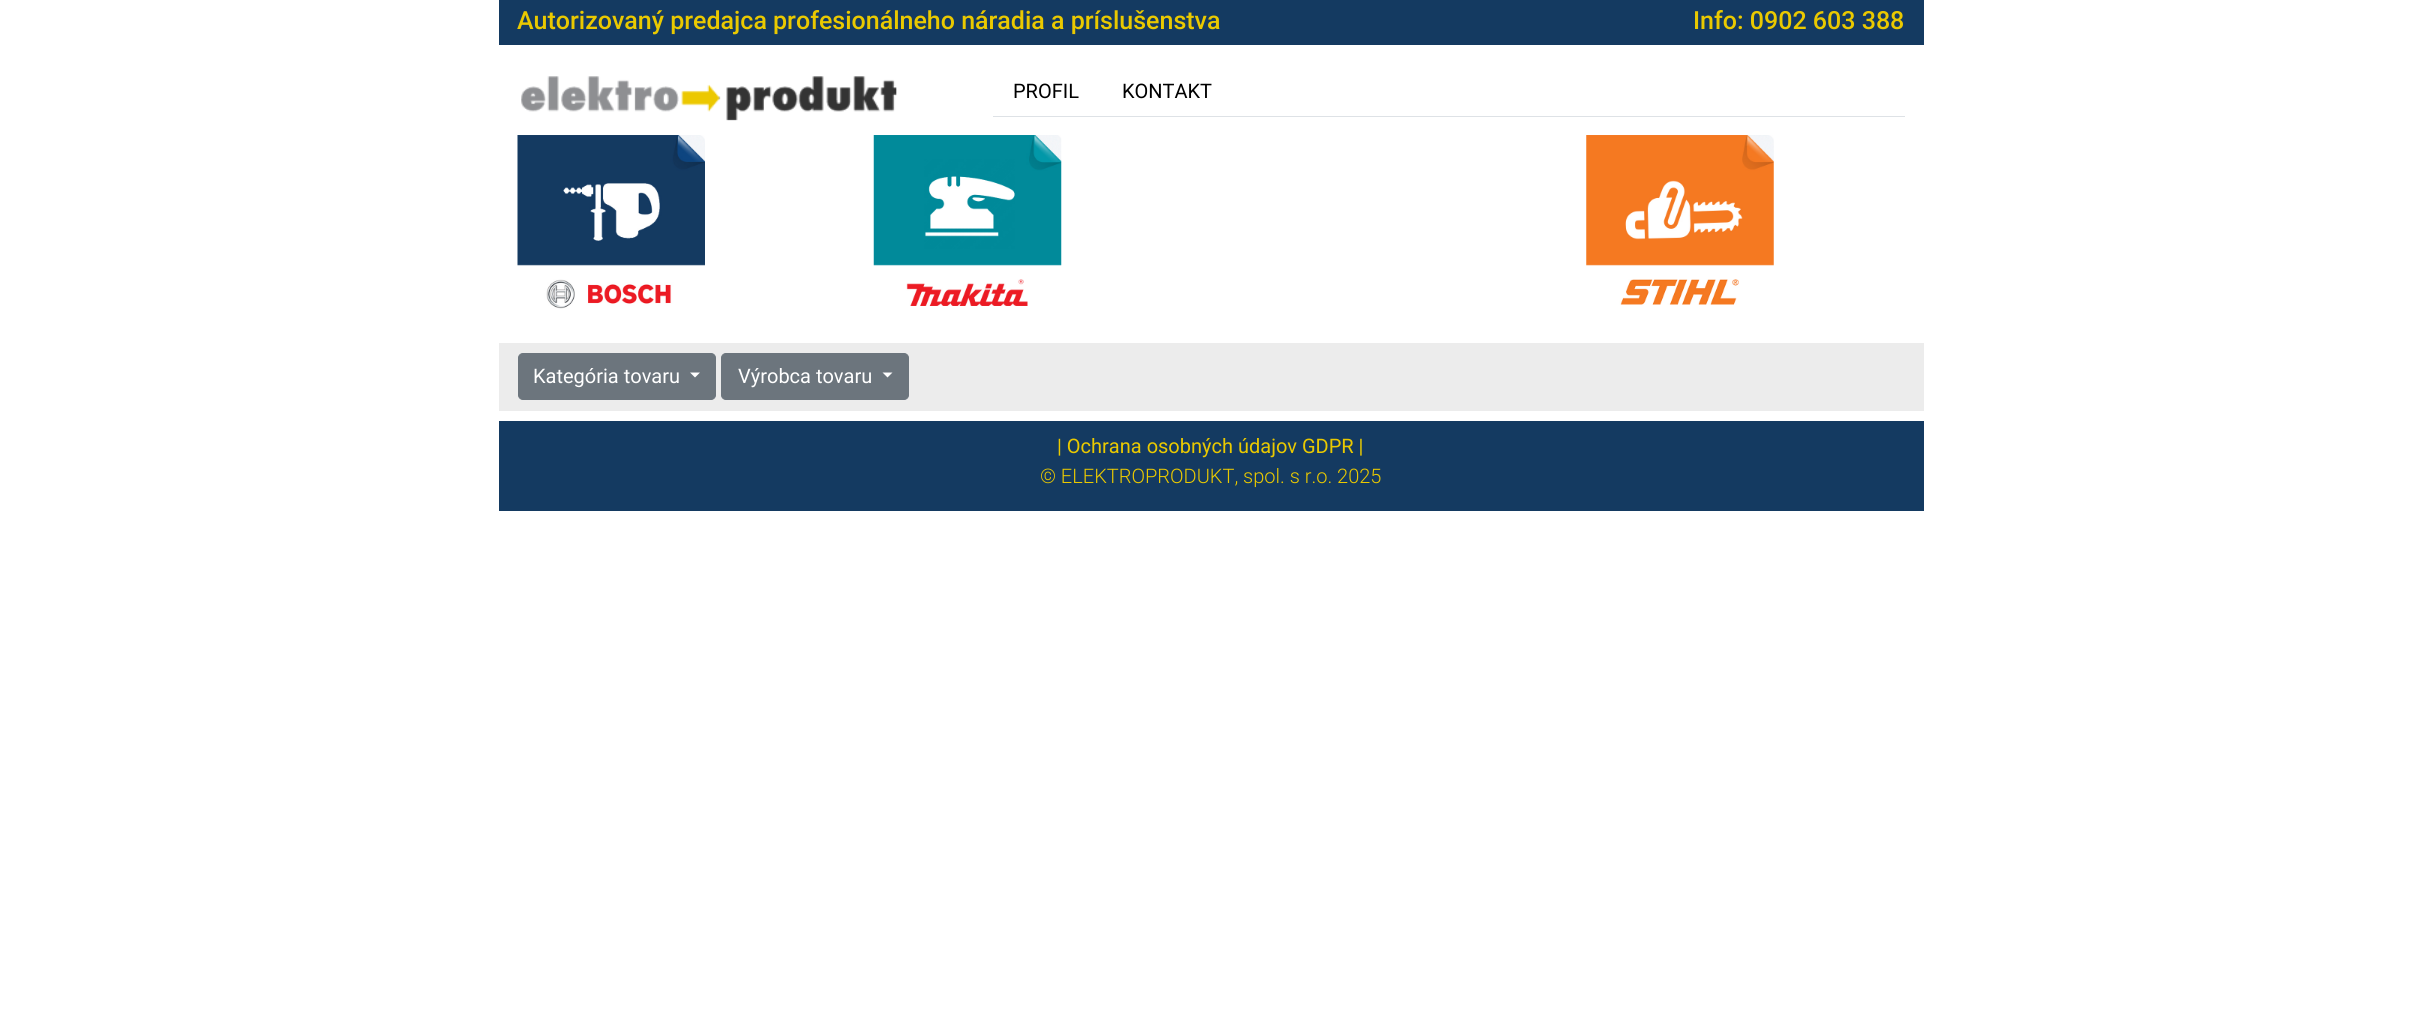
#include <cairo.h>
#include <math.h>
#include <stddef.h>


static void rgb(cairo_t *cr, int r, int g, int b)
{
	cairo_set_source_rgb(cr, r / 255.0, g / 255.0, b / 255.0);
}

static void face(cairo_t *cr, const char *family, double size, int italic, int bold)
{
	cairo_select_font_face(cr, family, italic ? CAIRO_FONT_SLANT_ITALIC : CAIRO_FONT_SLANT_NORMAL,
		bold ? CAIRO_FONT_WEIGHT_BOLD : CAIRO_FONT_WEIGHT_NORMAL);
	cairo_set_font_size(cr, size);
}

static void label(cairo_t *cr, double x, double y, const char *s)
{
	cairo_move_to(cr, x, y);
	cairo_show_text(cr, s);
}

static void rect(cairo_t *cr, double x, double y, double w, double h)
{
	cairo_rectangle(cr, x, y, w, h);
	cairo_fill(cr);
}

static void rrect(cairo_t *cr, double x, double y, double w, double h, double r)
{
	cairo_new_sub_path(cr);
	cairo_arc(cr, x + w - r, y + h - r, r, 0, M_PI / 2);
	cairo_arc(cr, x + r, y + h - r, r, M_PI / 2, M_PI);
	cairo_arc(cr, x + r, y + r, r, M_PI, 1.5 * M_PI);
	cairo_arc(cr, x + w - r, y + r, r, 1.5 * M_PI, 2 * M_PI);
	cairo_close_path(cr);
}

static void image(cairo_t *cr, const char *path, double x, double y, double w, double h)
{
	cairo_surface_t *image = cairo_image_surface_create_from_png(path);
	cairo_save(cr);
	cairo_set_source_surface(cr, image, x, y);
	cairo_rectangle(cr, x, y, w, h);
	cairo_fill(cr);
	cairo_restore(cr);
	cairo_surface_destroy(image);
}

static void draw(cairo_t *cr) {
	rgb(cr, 255, 255, 255);
	cairo_paint(cr);
	rgb(cr, 20, 58, 97);
	rect(cr, 499, 0, 1425, 45);
	face(cr, "Roboto Medium", 25, 0, 0);
	rgb(cr, 234, 201, 0);
	label(cr, 517, 29, "Autorizovaný predajca profesionálneho náradia a príslušenstva");
	label(cr, 1693, 29, "Info: 0902 603 388");
	image(cr, "image0.png", 521, 76, 376, 45);
	rgb(cr, 222, 226, 230);
	rect(cr, 993, 116, 912, 1);
	face(cr, "Roboto", 20, 0, 0);
	rgb(cr, 0, 0, 0);
	label(cr, 1013, 98, "PROFIL");
	label(cr, 1122, 98, "KONTAKT");
	image(cr, "image1.png", 517, 135, 188, 174);
	image(cr, "image2.png", 873, 135, 189, 171);
	image(cr, "image3.png", 1586, 135, 188, 170);
	rgb(cr, 236, 236, 236);
	rect(cr, 499, 343, 1425, 68);
	rgb(cr, 108, 117, 125);
	rrect(cr, 518.5, 353.5, 197, 46, 4.5);
	cairo_fill_preserve(cr);
	cairo_set_line_width(cr, 1);
	cairo_stroke(cr);
	rgb(cr, 255, 255, 255);
	label(cr, 533, 383, "Kategória tovaru");
	cairo_new_path(cr);
	cairo_move_to(cr, 690, 372.5);
	cairo_line_to(cr, 700, 372.5);
	cairo_line_to(cr, 695, 377.5);
	cairo_close_path(cr);
	cairo_fill(cr);
	rgb(cr, 108, 117, 125);
	rrect(cr, 721.5, 353.5, 187, 46, 4.5);
	cairo_fill_preserve(cr);
	cairo_stroke(cr);
	rgb(cr, 255, 255, 255);
	label(cr, 738, 383, "Výrobca tovaru");
	cairo_new_path(cr);
	cairo_move_to(cr, 882.5, 372.5);
	cairo_line_to(cr, 892.5, 372.5);
	cairo_line_to(cr, 887.5, 377.5);
	cairo_close_path(cr);
	cairo_fill(cr);
	rgb(cr, 20, 58, 97);
	rect(cr, 499, 421, 1425, 90);
	rgb(cr, 234, 201, 0);
	label(cr, 1057, 453, "| Ochrana osobných údajov GDPR |");
	face(cr, "Roboto Light", 20, 0, 0);
	label(cr, 1040, 483, "© ELEKTROPRODUKT, spol. s r.o. 2025");
}

int main(void) {
	cairo_surface_t *surface = cairo_image_surface_create(CAIRO_FORMAT_RGB24, 2421, 1036);
	cairo_t *cr = cairo_create(surface);
	cairo_font_options_t *options = cairo_font_options_create();
	cairo_font_options_set_hint_metrics(options, CAIRO_HINT_METRICS_OFF);
	cairo_font_options_set_hint_style(options, CAIRO_HINT_STYLE_NONE);
	cairo_set_font_options(cr, options);
	cairo_set_miter_limit(cr, 4);
	draw(cr);
	cairo_surface_write_to_png(surface, "render.png");
	cairo_font_options_destroy(options);
	cairo_destroy(cr);
	cairo_surface_destroy(surface);
	return 0;
}
